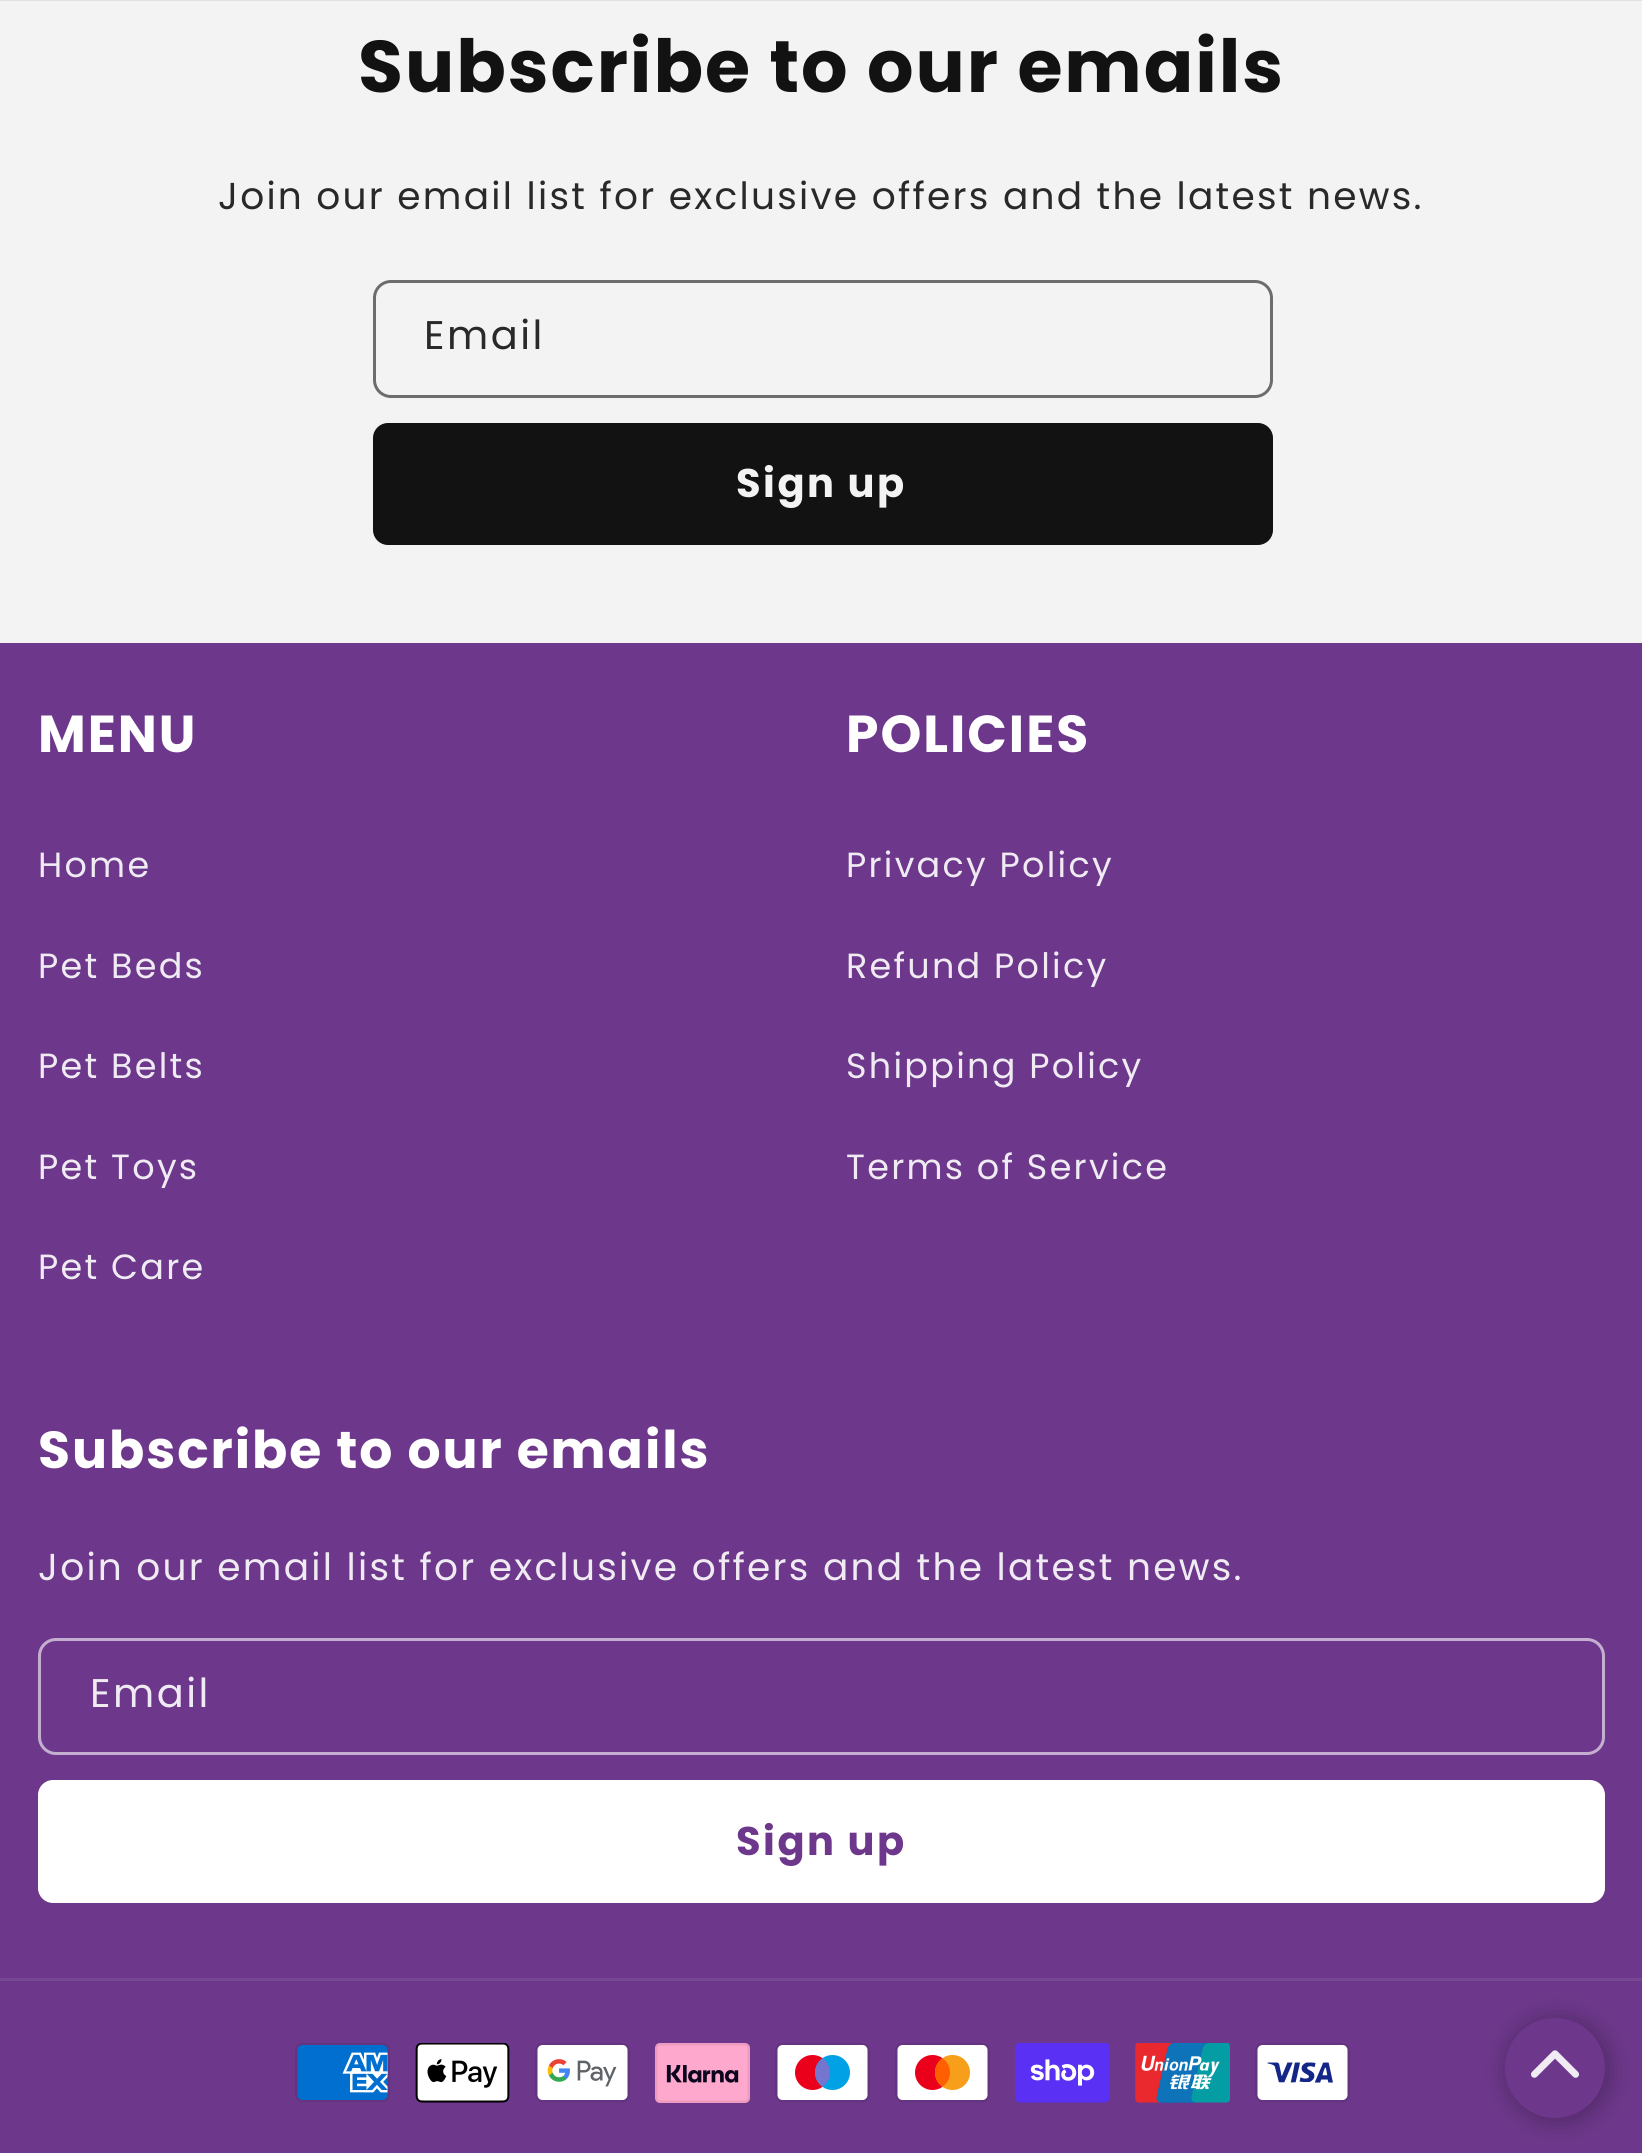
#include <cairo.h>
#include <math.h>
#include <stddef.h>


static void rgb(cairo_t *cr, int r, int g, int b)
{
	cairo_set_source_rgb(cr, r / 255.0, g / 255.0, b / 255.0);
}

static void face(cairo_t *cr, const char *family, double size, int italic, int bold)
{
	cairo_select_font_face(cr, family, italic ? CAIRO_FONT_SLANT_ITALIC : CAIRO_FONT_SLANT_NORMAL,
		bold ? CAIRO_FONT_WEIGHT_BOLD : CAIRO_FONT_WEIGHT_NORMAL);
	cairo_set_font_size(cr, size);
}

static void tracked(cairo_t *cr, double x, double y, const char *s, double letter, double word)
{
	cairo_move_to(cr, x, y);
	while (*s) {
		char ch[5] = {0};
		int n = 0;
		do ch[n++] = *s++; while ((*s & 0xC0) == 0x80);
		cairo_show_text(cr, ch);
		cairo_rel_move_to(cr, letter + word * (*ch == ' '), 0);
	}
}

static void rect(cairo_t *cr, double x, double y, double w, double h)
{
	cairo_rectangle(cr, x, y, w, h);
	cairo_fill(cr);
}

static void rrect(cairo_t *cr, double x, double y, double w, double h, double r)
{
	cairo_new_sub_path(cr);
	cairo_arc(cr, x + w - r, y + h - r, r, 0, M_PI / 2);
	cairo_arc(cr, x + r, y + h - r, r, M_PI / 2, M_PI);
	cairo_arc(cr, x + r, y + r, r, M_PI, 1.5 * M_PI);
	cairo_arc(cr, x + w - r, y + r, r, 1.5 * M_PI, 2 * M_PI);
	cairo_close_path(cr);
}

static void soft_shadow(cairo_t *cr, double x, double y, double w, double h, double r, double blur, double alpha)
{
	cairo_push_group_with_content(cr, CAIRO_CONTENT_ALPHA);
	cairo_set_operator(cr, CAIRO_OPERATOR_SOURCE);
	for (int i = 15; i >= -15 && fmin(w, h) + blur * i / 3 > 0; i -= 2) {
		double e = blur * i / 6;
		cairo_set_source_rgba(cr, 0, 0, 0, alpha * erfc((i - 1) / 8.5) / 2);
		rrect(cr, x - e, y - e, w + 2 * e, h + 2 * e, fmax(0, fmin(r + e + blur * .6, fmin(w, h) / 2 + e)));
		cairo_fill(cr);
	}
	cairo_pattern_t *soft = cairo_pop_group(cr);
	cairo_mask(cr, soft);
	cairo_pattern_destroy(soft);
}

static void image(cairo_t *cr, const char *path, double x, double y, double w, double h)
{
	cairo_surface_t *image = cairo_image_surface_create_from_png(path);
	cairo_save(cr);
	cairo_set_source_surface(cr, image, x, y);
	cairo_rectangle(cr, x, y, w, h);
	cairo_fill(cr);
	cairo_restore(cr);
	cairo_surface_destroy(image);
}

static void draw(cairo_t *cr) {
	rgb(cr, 109, 56, 139);
	cairo_paint(cr);
	rgb(cr, 225, 225, 225);
	rect(cr, 0, 0, 1642, 1);
	rgb(cr, 243, 243, 243);
	rect(cr, 0, 1, 1642, 642);
	face(cr, "Poppins", 73.1, 0, 1);
	rgb(cr, 18, 18, 18);
	tracked(cr, 358, 92, "Subscribe to our emails", 1.95, 0);
	face(cr, "Poppins", 37.5, 0, 0);
	rgb(cr, 41, 41, 41);
	tracked(cr, 218, 209, "Join our email list for exclusive offers and the latest news.", 2.25, 0);
	rrect(cr, 374.5, 281.5, 897, 115, 16.5);
	rgb(cr, 108, 108, 108);
	cairo_set_line_width(cr, 3);
	cairo_stroke(cr);
	face(cr, "Poppins", 40, 0, 0);
	rgb(cr, 41, 41, 41);
	tracked(cr, 424, 349, "Email", 2.5, 0);
	rrect(cr, 375.5, 425.5, 895, 117, 17.5);
	rgb(cr, 18, 18, 18);
	cairo_set_line_width(cr, 5);
	cairo_stroke(cr);
	rrect(cr, 373, 423, 900, 122, 15);
	cairo_fill(cr);
	face(cr, "Poppins", 40, 0, 1);
	rgb(cr, 243, 243, 243);
	tracked(cr, 736, 497, "Sign up", 2.5, 0);
	face(cr, "Poppins", 52, 0, 1);
	rgb(cr, 255, 255, 255);
	tracked(cr, 38, 752, "MENU", 1.95, 0);
	face(cr, "Poppins", 35, 0, 0);
	rgb(cr, 240, 235, 243);
	tracked(cr, 38, 877, "Home", 2.25, 0);
	tracked(cr, 38, 978, "Pet Beds", 2.25, 0);
	tracked(cr, 38, 1078, "Pet Belts", 2.25, 0);
	tracked(cr, 38, 1179, "Pet Toys", 2.25, 0);
	tracked(cr, 38, 1279, "Pet Care", 2.25, 0);
	face(cr, "Poppins", 52, 0, 1);
	rgb(cr, 255, 255, 255);
	tracked(cr, 846, 752, "POLICIES", 1.95, 0);
	face(cr, "Poppins", 35, 0, 0);
	rgb(cr, 240, 235, 243);
	tracked(cr, 846, 877, "Privacy Policy", 2.25, 0);
	tracked(cr, 846, 978, "Refund Policy", 2.25, 0);
	tracked(cr, 846, 1078, "Shipping Policy", 2.25, 0);
	tracked(cr, 846, 1179, "Terms of Service", 2.25, 0);
	face(cr, "Poppins", 52, 0, 1);
	rgb(cr, 255, 255, 255);
	tracked(cr, 38, 1468, "Subscribe to our emails", 1.95, 0);
	face(cr, "Poppins", 37.5, 0, 0);
	rgb(cr, 240, 235, 243);
	tracked(cr, 38, 1580, "Join our email list for exclusive offers and the latest news.", 2.25, 0);
	rrect(cr, 39.5, 1639.5, 1564, 114, 16.5);
	rgb(cr, 197, 175, 209);
	cairo_set_line_width(cr, 3);
	cairo_stroke(cr);
	face(cr, "Poppins", 40, 0, 0);
	rgb(cr, 240, 235, 243);
	tracked(cr, 90, 1707, "Email", 2.5, 0);
	rrect(cr, 40.5, 1782.5, 1562, 118, 17.5);
	rgb(cr, 255, 255, 255);
	cairo_set_line_width(cr, 5);
	cairo_stroke(cr);
	rrect(cr, 38, 1780, 1567, 123, 15);
	cairo_fill(cr);
	face(cr, "Poppins", 40, 0, 1);
	rgb(cr, 109, 56, 139);
	tracked(cr, 736, 1855, "Sign up", 2.5, 0);
	rgb(cr, 121, 72, 148);
	rect(cr, 0, 1978, 1642, 3);
	image(cr, "image0.png", 295, 2043, 95, 60);
	image(cr, "image1.png", 415, 2043, 95, 60);
	image(cr, "image2.png", 535, 2043, 95, 60);
	image(cr, "image3.png", 655, 2043, 95, 60);
	image(cr, "image4.png", 775, 2043, 95, 60);
	image(cr, "image5.png", 895, 2043, 95, 60);
	image(cr, "image6.png", 1015, 2043, 95, 60);
	image(cr, "image7.png", 1135, 2043, 95, 60);
	image(cr, "image8.png", 1255, 2043, 95, 60);
	rgb(cr, 0, 0, 0);
	soft_shadow(cr, 1508, 2020, 100, 100, 50, 12.5, 0.3);
	rgb(cr, 109, 56, 139);
	cairo_arc(cr, 1555, 2068, 50, 0, 2 * M_PI);
	cairo_fill(cr);
	image(cr, "image9.png", 1530, 2050, 50, 28);
}

int main(void) {
	cairo_surface_t *surface = cairo_image_surface_create(CAIRO_FORMAT_RGB24, 1642, 2153);
	cairo_t *cr = cairo_create(surface);
	cairo_font_options_t *options = cairo_font_options_create();
	cairo_font_options_set_hint_metrics(options, CAIRO_HINT_METRICS_OFF);
	cairo_font_options_set_hint_style(options, CAIRO_HINT_STYLE_NONE);
	cairo_set_font_options(cr, options);
	cairo_set_miter_limit(cr, 4);
	draw(cr);
	cairo_surface_write_to_png(surface, "render.png");
	cairo_font_options_destroy(options);
	cairo_destroy(cr);
	cairo_surface_destroy(surface);
	return 0;
}
